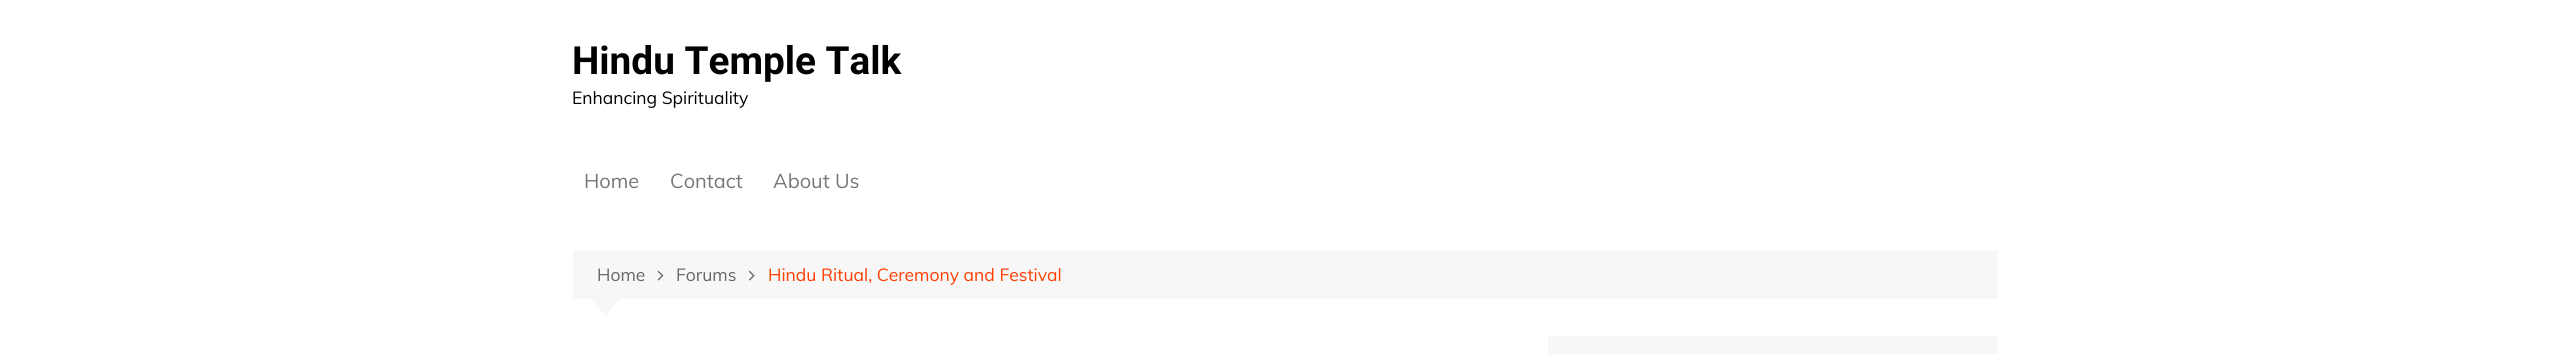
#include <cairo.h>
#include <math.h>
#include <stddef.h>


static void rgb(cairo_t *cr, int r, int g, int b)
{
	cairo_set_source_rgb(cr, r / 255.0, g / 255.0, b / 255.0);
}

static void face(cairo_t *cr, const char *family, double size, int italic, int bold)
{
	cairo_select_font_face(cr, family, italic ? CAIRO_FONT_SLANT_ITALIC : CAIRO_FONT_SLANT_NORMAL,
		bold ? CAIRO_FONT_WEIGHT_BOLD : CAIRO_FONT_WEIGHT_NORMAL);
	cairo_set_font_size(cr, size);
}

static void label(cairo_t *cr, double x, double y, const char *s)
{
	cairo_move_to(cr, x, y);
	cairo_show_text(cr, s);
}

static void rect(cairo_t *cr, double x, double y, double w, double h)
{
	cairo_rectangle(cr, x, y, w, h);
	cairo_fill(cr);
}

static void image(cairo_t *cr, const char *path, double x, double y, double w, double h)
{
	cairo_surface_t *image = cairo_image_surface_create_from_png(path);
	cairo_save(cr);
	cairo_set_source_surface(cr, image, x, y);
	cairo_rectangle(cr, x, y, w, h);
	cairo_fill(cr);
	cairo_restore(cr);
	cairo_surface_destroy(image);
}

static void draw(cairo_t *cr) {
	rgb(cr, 255, 255, 255);
	cairo_paint(cr);
	face(cr, "Roboto", 38.75, 0, 1);
	rgb(cr, 1, 1, 1);
	label(cr, 572, 74, "Hindu Temple Talk");
	face(cr, "Muli", 17.5, 0, 0);
	label(cr, 572, 104, "Enhancing Spirituality");
	face(cr, "Muli", 20, 0, 0);
	rgb(cr, 119, 119, 119);
	label(cr, 584, 188, "Home");
	label(cr, 670, 188, "Contact");
	label(cr, 773, 188, "About Us");
	rgb(cr, 247, 247, 247);
	rect(cr, 573, 250, 1425, 49);
	face(cr, "Muli", 17.5, 0, 0);
	rgb(cr, 102, 102, 102);
	label(cr, 597, 281, "Home");
	image(cr, "image0.png", 657, 270, 7, 11);
	label(cr, 676, 281, "Forums");
	image(cr, "image1.png", 748, 270, 7, 11);
	rgb(cr, 255, 61, 0);
	label(cr, 768, 281, "Hindu Ritual, Ceremony and Festival");
	rgb(cr, 247, 247, 247);
	cairo_new_path(cr);
	cairo_move_to(cr, 590.5, 299);
	cairo_line_to(cr, 620.5, 299);
	cairo_line_to(cr, 605.5, 315);
	cairo_close_path(cr);
	cairo_fill(cr);
	rect(cr, 1548, 336, 450, 18);
}

int main(void) {
	cairo_surface_t *surface = cairo_image_surface_create(CAIRO_FORMAT_RGB24, 2568, 354);
	cairo_t *cr = cairo_create(surface);
	cairo_font_options_t *options = cairo_font_options_create();
	cairo_font_options_set_hint_metrics(options, CAIRO_HINT_METRICS_OFF);
	cairo_font_options_set_hint_style(options, CAIRO_HINT_STYLE_NONE);
	cairo_set_font_options(cr, options);
	cairo_set_miter_limit(cr, 4);
	draw(cr);
	cairo_surface_write_to_png(surface, "render.png");
	cairo_font_options_destroy(options);
	cairo_destroy(cr);
	cairo_surface_destroy(surface);
	return 0;
}
